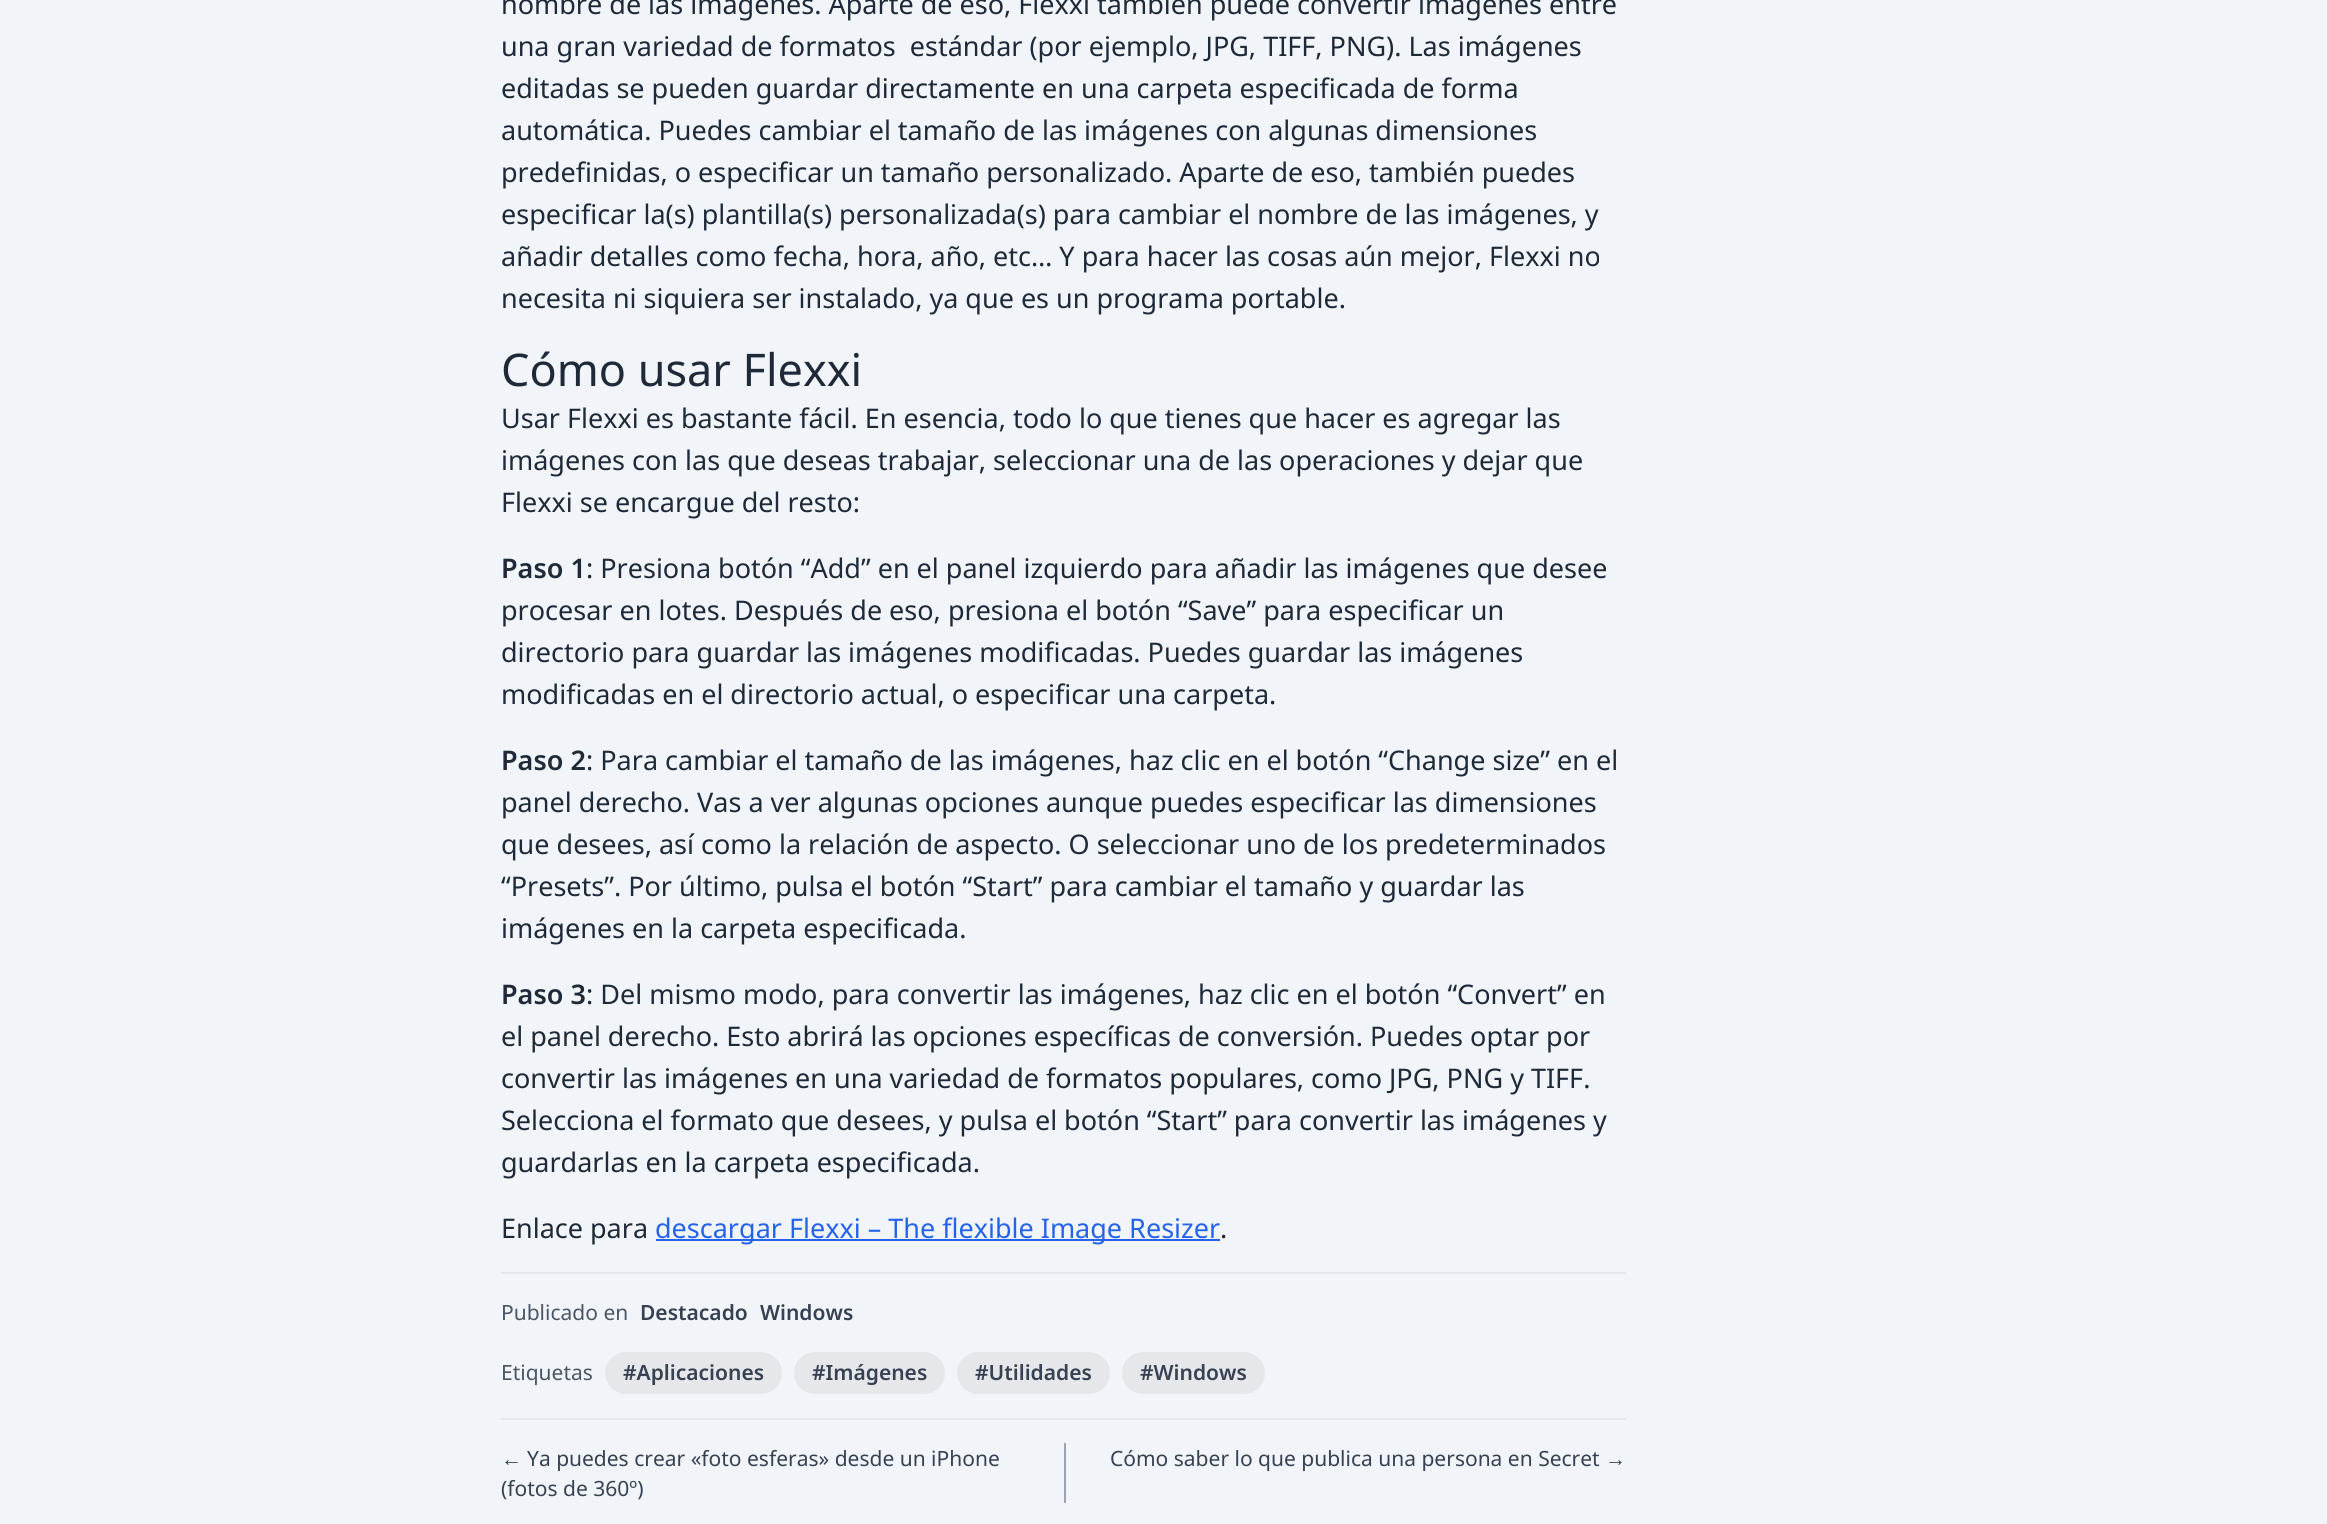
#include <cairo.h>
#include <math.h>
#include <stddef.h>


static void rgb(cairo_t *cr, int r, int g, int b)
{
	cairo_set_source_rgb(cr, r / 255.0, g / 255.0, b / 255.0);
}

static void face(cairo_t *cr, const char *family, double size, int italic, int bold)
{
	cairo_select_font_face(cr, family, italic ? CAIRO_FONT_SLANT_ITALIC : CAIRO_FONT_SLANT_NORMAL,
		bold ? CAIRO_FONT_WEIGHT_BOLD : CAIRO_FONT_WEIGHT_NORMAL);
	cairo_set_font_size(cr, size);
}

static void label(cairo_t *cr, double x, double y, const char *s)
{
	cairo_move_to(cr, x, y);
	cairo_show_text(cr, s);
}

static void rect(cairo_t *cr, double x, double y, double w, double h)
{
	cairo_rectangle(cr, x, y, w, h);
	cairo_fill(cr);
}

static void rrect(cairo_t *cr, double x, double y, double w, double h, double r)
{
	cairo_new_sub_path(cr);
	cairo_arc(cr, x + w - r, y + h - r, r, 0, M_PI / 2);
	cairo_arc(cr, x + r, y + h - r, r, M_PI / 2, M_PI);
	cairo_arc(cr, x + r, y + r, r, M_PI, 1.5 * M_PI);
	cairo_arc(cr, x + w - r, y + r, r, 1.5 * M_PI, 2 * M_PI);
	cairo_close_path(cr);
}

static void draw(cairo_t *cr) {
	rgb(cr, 241, 245, 249);
	cairo_paint(cr);
	face(cr, "Noto Sans", 27, 0, 0);
	rgb(cr, 31, 41, 55);
	label(cr, 501, 14, "nombre de las imágenes. Aparte de eso, Flexxi también puede convertir imágenes entre");
	label(cr, 501, 56, "una gran variedad de formatos  estándar (por ejemplo, JPG, TIFF, PNG). Las imágenes");
	label(cr, 501, 98, "editadas se pueden guardar directamente en una carpeta especificada de forma");
	label(cr, 501, 140, "automática. Puedes cambiar el tamaño de las imágenes con algunas dimensiones");
	label(cr, 501, 182, "predefinidas, o especificar un tamaño personalizado. Aparte de eso, también puedes");
	label(cr, 501, 224, "especificar la(s) plantilla(s) personalizada(s) para cambiar el nombre de las imágenes, y");
	label(cr, 501, 266, "añadir detalles como fecha, hora, año, etc… Y para hacer las cosas aún mejor, Flexxi no");
	label(cr, 501, 308, "necesita ni siquiera ser instalado, ya que es un programa portable.");
	face(cr, "Noto Sans", 45, 0, 0);
	label(cr, 501, 386, "Cómo usar Flexxi");
	face(cr, "Noto Sans", 27, 0, 0);
	label(cr, 501, 428, "Usar Flexxi es bastante fácil. En esencia, todo lo que tienes que hacer es agregar las");
	label(cr, 501, 470, "imágenes con las que deseas trabajar, seleccionar una de las operaciones y dejar que");
	label(cr, 501, 512, "Flexxi se encargue del resto:");
	face(cr, "Noto Sans SemiBold", 27, 0, 0);
	label(cr, 501, 578, "Paso 1");
	face(cr, "Noto Sans", 27, 0, 0);
	label(cr, 586, 578, ": Presiona botón “Add” en el panel izquierdo para añadir las imágenes que desee");
	label(cr, 501, 620, "procesar en lotes. Después de eso, presiona el botón “Save” para especificar un");
	label(cr, 501, 662, "directorio para guardar las imágenes modificadas. Puedes guardar las imágenes");
	label(cr, 501, 704, "modificadas en el directorio actual, o especificar una carpeta.");
	face(cr, "Noto Sans SemiBold", 27, 0, 0);
	label(cr, 501, 770, "Paso 2");
	face(cr, "Noto Sans", 27, 0, 0);
	label(cr, 586, 770, ": Para cambiar el tamaño de las imágenes, haz clic en el botón “Change size” en el");
	label(cr, 501, 812, "panel derecho. Vas a ver algunas opciones aunque puedes especificar las dimensiones");
	label(cr, 501, 854, "que desees, así como la relación de aspecto. O seleccionar uno de los predeterminados");
	label(cr, 501, 896, "“Presets”. Por último, pulsa el botón “Start” para cambiar el tamaño y guardar las");
	label(cr, 501, 938, "imágenes en la carpeta especificada.");
	face(cr, "Noto Sans SemiBold", 27, 0, 0);
	label(cr, 501, 1004, "Paso 3");
	face(cr, "Noto Sans", 27, 0, 0);
	label(cr, 586, 1004, ": Del mismo modo, para convertir las imágenes, haz clic en el botón “Convert” en");
	label(cr, 501, 1046, "el panel derecho. Esto abrirá las opciones específicas de conversión. Puedes optar por");
	label(cr, 501, 1088, "convertir las imágenes en una variedad de formatos populares, como JPG, PNG y TIFF.");
	label(cr, 501, 1130, "Selecciona el formato que desees, y pulsa el botón “Start” para convertir las imágenes y");
	label(cr, 501, 1172, "guardarlas en la carpeta especificada.");
	label(cr, 501, 1238, "Enlace para");
	rgb(cr, 37, 99, 235);
	rect(cr, 656, 1239, 564, 2);
	label(cr, 655, 1238, "descargar Flexxi – The flexible Image Resizer");
	rgb(cr, 31, 41, 55);
	label(cr, 1220, 1238, ".");
	rgb(cr, 229, 231, 235);
	rect(cr, 501, 1272, 1125, 2);
	face(cr, "Noto Sans", 21, 0, 0);
	rgb(cr, 75, 85, 99);
	label(cr, 501, 1320, "Publicado en");
	face(cr, "Noto Sans SemiBold", 21, 0, 0);
	rgb(cr, 55, 65, 81);
	label(cr, 640, 1320, "Destacado");
	label(cr, 760, 1320, "Windows");
	rgb(cr, 229, 231, 235);
	rect(cr, 501, 1418, 1125, 2);
	face(cr, "Noto Sans", 21, 0, 0);
	rgb(cr, 75, 85, 99);
	label(cr, 501, 1380, "Etiquetas");
	rgb(cr, 229, 231, 235);
	rrect(cr, 605, 1352, 177, 42, 21);
	cairo_fill(cr);
	face(cr, "Noto Sans SemiBold", 21, 0, 0);
	rgb(cr, 55, 65, 81);
	label(cr, 623, 1380, "#Aplicaciones");
	rgb(cr, 229, 231, 235);
	rrect(cr, 794, 1352, 151, 42, 21);
	cairo_fill(cr);
	rgb(cr, 55, 65, 81);
	label(cr, 812, 1380, "#Imágenes");
	rgb(cr, 229, 231, 235);
	rrect(cr, 957, 1352, 153, 42, 21);
	cairo_fill(cr);
	rgb(cr, 55, 65, 81);
	label(cr, 975, 1380, "#Utilidades");
	rgb(cr, 229, 231, 235);
	rrect(cr, 1122, 1352, 143, 42, 21);
	cairo_fill(cr);
	rgb(cr, 55, 65, 81);
	label(cr, 1140, 1380, "#Windows");
	face(cr, "Liberation Sans", 21, 0, 0);
	label(cr, 501, 1466, "←");
	face(cr, "Noto Sans", 21, 0, 0);
	label(cr, 527, 1466, "Ya puedes crear «foto esferas» desde un iPhone");
	label(cr, 501, 1496, "(fotos de 360º)");
	rgb(cr, 156, 163, 175);
	rect(cr, 1064, 1443, 2, 60);
	rgb(cr, 55, 65, 81);
	label(cr, 1110, 1466, "Cómo saber lo que publica una persona en Secret");
	face(cr, "Liberation Sans", 21, 0, 0);
	label(cr, 1605, 1466, "→");
}

int main(void) {
	cairo_surface_t *surface = cairo_image_surface_create(CAIRO_FORMAT_RGB24, 2327, 1524);
	cairo_t *cr = cairo_create(surface);
	cairo_font_options_t *options = cairo_font_options_create();
	cairo_font_options_set_hint_metrics(options, CAIRO_HINT_METRICS_OFF);
	cairo_font_options_set_hint_style(options, CAIRO_HINT_STYLE_NONE);
	cairo_set_font_options(cr, options);
	cairo_set_miter_limit(cr, 4);
	draw(cr);
	cairo_surface_write_to_png(surface, "render.png");
	cairo_font_options_destroy(options);
	cairo_destroy(cr);
	cairo_surface_destroy(surface);
	return 0;
}
